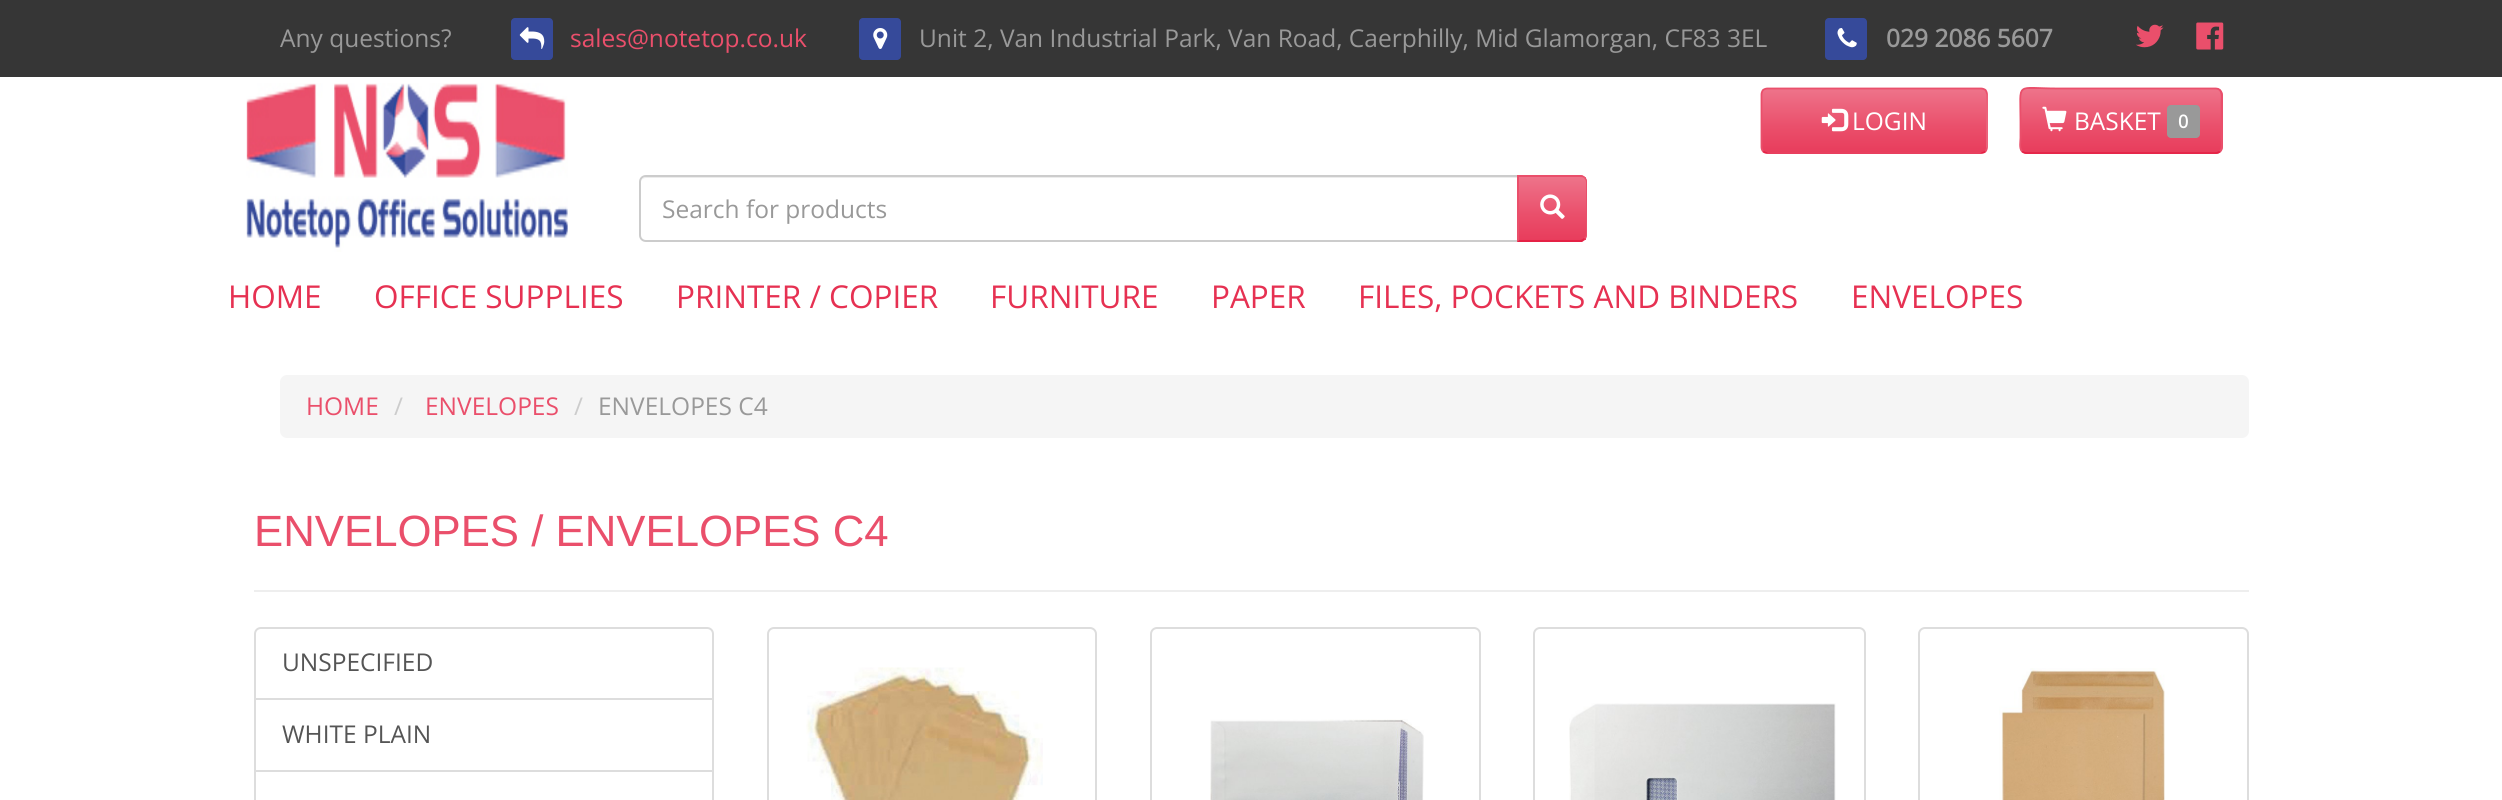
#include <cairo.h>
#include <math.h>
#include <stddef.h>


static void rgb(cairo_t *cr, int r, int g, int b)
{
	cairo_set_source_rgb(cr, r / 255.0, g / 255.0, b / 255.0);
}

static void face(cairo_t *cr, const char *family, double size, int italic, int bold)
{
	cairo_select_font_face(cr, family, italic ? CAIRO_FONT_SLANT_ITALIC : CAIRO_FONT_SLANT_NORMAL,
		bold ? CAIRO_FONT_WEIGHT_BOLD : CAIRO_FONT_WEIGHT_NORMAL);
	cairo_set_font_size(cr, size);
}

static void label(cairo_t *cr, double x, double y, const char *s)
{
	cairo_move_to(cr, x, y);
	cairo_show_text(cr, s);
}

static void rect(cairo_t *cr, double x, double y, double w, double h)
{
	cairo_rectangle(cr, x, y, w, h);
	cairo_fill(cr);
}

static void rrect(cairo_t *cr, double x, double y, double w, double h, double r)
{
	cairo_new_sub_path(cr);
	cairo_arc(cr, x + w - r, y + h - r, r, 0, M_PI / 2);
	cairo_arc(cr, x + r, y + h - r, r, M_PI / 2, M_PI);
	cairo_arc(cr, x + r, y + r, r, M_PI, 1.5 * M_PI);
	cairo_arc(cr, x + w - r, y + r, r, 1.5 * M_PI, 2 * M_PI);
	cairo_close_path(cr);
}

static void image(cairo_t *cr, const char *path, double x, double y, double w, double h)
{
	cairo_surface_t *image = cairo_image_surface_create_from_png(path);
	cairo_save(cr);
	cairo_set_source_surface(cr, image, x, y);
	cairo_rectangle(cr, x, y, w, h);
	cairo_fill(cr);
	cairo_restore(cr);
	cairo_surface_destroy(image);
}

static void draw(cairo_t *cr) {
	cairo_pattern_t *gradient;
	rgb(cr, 255, 255, 255);
	cairo_paint(cr);
	rgb(cr, 54, 54, 54);
	rect(cr, 0, 0, 2502, 77);
	face(cr, "Open Sans", 24.5, 0, 0);
	rgb(cr, 153, 153, 153);
	label(cr, 280, 47, "Any questions?");
	rgb(cr, 54, 74, 154);
	rrect(cr, 511, 18, 42, 42, 4);
	cairo_fill(cr);
	image(cr, "image0.png", 519, 27, 26, 22);
	rgb(cr, 234, 79, 107);
	label(cr, 570, 47, "sales@notetop.co.uk");
	rgb(cr, 54, 74, 154);
	rrect(cr, 859, 18, 42, 42, 4);
	cairo_fill(cr);
	image(cr, "image1.png", 873, 28, 15, 21);
	rgb(cr, 153, 153, 153);
	label(cr, 919, 47, "Unit 2, Van Industrial Park, Van Road, Caerphilly, Mid Glamorgan, CF83 3EL");
	rgb(cr, 54, 74, 154);
	rrect(cr, 1825, 18, 42, 42, 4);
	cairo_fill(cr);
	image(cr, "image2.png", 1837, 28, 20, 20);
	face(cr, "Open Sans", 24.5, 0, 1);
	rgb(cr, 153, 153, 153);
	label(cr, 1886, 47, "029 2086 5607");
	image(cr, "image3.png", 2136, 24, 28, 24);
	image(cr, "image4.png", 2196, 22, 28, 28);
	image(cr, "image5.png", 246, 83, 322, 169);
	cairo_save(cr);
	rrect(cr, 1761, 88, 227, 66, 7);
	cairo_clip(cr);
	gradient = cairo_pattern_create_linear(1874, 89, 1874, 152);
	cairo_pattern_add_color_stop_rgba(gradient, 0, 0.933, 0.451, 0.541, 1);
	cairo_pattern_add_color_stop_rgba(gradient, 0.6, 0.918, 0.31, 0.42, 1);
	cairo_pattern_add_color_stop_rgba(gradient, 1, 0.91, 0.239, 0.361, 1);
	cairo_set_source(cr, gradient);
	cairo_pattern_destroy(gradient);
	rect(cr, 1762, 89, 224, 63);
	cairo_restore(cr);
	cairo_new_path(cr);
	cairo_move_to(cr, 1985.5, 151.5);
	cairo_curve_to(cr, 1984, 152.5, 1982.5, 153, 1981, 153);
	cairo_line_to(cr, 1767.5, 153);
	cairo_curve_to(cr, 1766, 153, 1764.5, 152.5, 1763, 151.5);
	rgb(cr, 229, 33, 69);
	cairo_set_line_width(cr, 1.8);
	cairo_stroke(cr);
	cairo_new_path(cr);
	cairo_move_to(cr, 1763, 151.5);
	cairo_curve_to(cr, 1762, 150, 1761.5, 148.5, 1761.5, 147);
	cairo_line_to(cr, 1761.5, 94.5);
	cairo_curve_to(cr, 1761.5, 93, 1762, 91.5, 1763, 90);
	cairo_curve_to(cr, 1764.5, 89, 1766, 88.5, 1767.5, 88.5);
	cairo_line_to(cr, 1981, 88.5);
	cairo_curve_to(cr, 1982.5, 88.5, 1984, 89, 1985.5, 90);
	cairo_curve_to(cr, 1986.5, 91.5, 1987, 93, 1987, 94.5);
	cairo_line_to(cr, 1987, 147);
	cairo_curve_to(cr, 1987, 148.5, 1986.5, 150, 1985.5, 151.5);
	rgb(cr, 234, 79, 107);
	cairo_stroke(cr);
	image(cr, "image6.png", 1821, 108, 28, 24);
	face(cr, "Open Sans", 24.5, 0, 0);
	rgb(cr, 255, 255, 255);
	label(cr, 1852, 130, "LOGIN");
	rgb(cr, 234, 79, 107);
	rrect(cr, 2020, 88, 203, 66, 7);
	cairo_fill(cr);
	cairo_save(cr);
	rrect(cr, 2020, 88, 203, 66, 7);
	cairo_clip(cr);
	gradient = cairo_pattern_create_linear(2121, 89, 2121, 152);
	cairo_pattern_add_color_stop_rgba(gradient, 0, 0.933, 0.451, 0.541, 1);
	cairo_pattern_add_color_stop_rgba(gradient, 0.6, 0.918, 0.31, 0.42, 1);
	cairo_pattern_add_color_stop_rgba(gradient, 1, 0.91, 0.239, 0.361, 1);
	cairo_set_source(cr, gradient);
	cairo_pattern_destroy(gradient);
	rect(cr, 2021, 89, 200, 63);
	cairo_restore(cr);
	cairo_new_path(cr);
	cairo_move_to(cr, 2220, 151.5);
	cairo_curve_to(cr, 2218.5, 152.5, 2217, 153, 2215.5, 153);
	cairo_line_to(cr, 2026.5, 153);
	cairo_curve_to(cr, 2025, 153, 2023.5, 152.5, 2022, 151.5);
	rgb(cr, 229, 33, 69);
	cairo_stroke(cr);
	cairo_new_path(cr);
	cairo_move_to(cr, 2022, 151.5);
	cairo_curve_to(cr, 2019, 148, 2020.5, 141.5, 2020.5, 138);
	cairo_line_to(cr, 2020.5, 121);
	cairo_curve_to(cr, 2020.5, 80.5, 2014.5, 88.5, 2058, 88.5);
	cairo_line_to(cr, 2215.5, 88.5);
	cairo_curve_to(cr, 2223.5, 88.5, 2221.5, 98.5, 2221.5, 103);
	cairo_line_to(cr, 2221.5, 138);
	cairo_curve_to(cr, 2221.5, 141.5, 2223, 148, 2220, 151.5);
	rgb(cr, 234, 79, 107);
	cairo_stroke(cr);
	image(cr, "image7.png", 2042, 106, 25, 26);
	rgb(cr, 255, 255, 255);
	label(cr, 2074, 130, "BASKET");
	rgb(cr, 153, 153, 153);
	rrect(cr, 2167, 105, 33, 33, 4);
	cairo_fill(cr);
	face(cr, "Open Sans", 18, 0, 1);
	rgb(cr, 255, 255, 255);
	label(cr, 2178, 128, "0");
	rgb(cr, 236, 236, 236);
	cairo_new_path(cr);
	cairo_move_to(cr, 646, 178);
	cairo_line_to(cr, 1517, 178);
	cairo_line_to(cr, 1517, 177);
	cairo_line_to(cr, 646, 177);
	cairo_curve_to(cr, 644, 177, 642, 179, 641, 181);
	cairo_curve_to(cr, 642, 179, 644, 178, 646, 178);
	cairo_close_path(cr);
	cairo_fill(cr);
	cairo_new_path(cr);
	cairo_move_to(cr, 646, 176);
	cairo_line_to(cr, 1518, 176);
	cairo_line_to(cr, 1518, 241);
	cairo_line_to(cr, 646, 241);
	cairo_curve_to(cr, 642.5, 241, 640, 238.5, 640, 235);
	cairo_line_to(cr, 640, 182);
	cairo_curve_to(cr, 640, 178.5, 642.5, 176, 646, 176);
	cairo_close_path(cr);
	rgb(cr, 204, 204, 204);
	cairo_set_line_width(cr, 2);
	cairo_stroke(cr);
	face(cr, "Open Sans", 24.5, 0, 0);
	rgb(cr, 153, 153, 153);
	label(cr, 662, 218, "Search for products");
	rgb(cr, 234, 79, 107);
	cairo_new_path(cr);
	cairo_move_to(cr, 1517, 175);
	cairo_line_to(cr, 1580, 175);
	cairo_curve_to(cr, 1584, 175, 1587, 178, 1587, 182);
	cairo_line_to(cr, 1587, 235);
	cairo_curve_to(cr, 1587, 239, 1584, 242, 1580, 242);
	cairo_line_to(cr, 1517, 242);
	cairo_close_path(cr);
	cairo_fill(cr);
	gradient = cairo_pattern_create_linear(1552, 177, 1552, 240);
	cairo_pattern_add_color_stop_rgba(gradient, 0, 0.933, 0.451, 0.541, 1);
	cairo_pattern_add_color_stop_rgba(gradient, 0.6, 0.918, 0.31, 0.42, 1);
	cairo_pattern_add_color_stop_rgba(gradient, 1, 0.91, 0.239, 0.361, 1);
	cairo_set_source(cr, gradient);
	cairo_pattern_destroy(gradient);
	rect(cr, 1519, 177, 67, 63);
	rgb(cr, 234, 79, 107);
	cairo_new_path(cr);
	cairo_move_to(cr, 1517, 175);
	cairo_line_to(cr, 1519, 177);
	cairo_line_to(cr, 1580, 177);
	cairo_curve_to(cr, 1581, 177, 1583, 177, 1584, 178);
	cairo_line_to(cr, 1585, 177);
	cairo_curve_to(cr, 1584, 176, 1582, 175, 1580, 175);
	cairo_close_path(cr);
	cairo_fill(cr);
	cairo_new_path(cr);
	cairo_move_to(cr, 1585, 177);
	cairo_curve_to(cr, 1586, 178, 1587, 180, 1587, 182);
	cairo_line_to(cr, 1587, 234);
	cairo_curve_to(cr, 1587, 236, 1586, 238, 1585, 239);
	cairo_line_to(cr, 1584, 238);
	cairo_curve_to(cr, 1585, 237, 1586, 236, 1586, 234);
	cairo_line_to(cr, 1586, 182);
	cairo_curve_to(cr, 1586, 180, 1585, 179, 1584, 178);
	cairo_close_path(cr);
	cairo_fill(cr);
	rgb(cr, 229, 33, 69);
	cairo_new_path(cr);
	cairo_move_to(cr, 1585, 239);
	cairo_line_to(cr, 1582, 242);
	cairo_line_to(cr, 1517, 242);
	cairo_line_to(cr, 1519, 240);
	cairo_line_to(cr, 1580, 240);
	cairo_curve_to(cr, 1581, 240, 1583, 239, 1584, 238);
	cairo_close_path(cr);
	cairo_fill(cr);
	rgb(cr, 234, 79, 107);
	cairo_new_path(cr);
	cairo_move_to(cr, 1519, 177);
	cairo_line_to(cr, 1517, 175);
	cairo_line_to(cr, 1517, 242);
	cairo_line_to(cr, 1519, 240);
	cairo_close_path(cr);
	cairo_fill(cr);
	image(cr, "image8.png", 1540, 194, 25, 25);
	face(cr, "Open Sans", 31.5, 0, 0);
	rgb(cr, 230, 49, 82);
	label(cr, 228, 308, "HOME");
	label(cr, 374, 308, "OFFICE SUPPLIES");
	label(cr, 676, 308, "PRINTER / COPIER");
	label(cr, 990, 308, "FURNITURE");
	label(cr, 1211, 308, "PAPER");
	label(cr, 1358, 308, "FILES, POCKETS AND BINDERS");
	label(cr, 1851, 308, "ENVELOPES");
	rgb(cr, 245, 245, 245);
	rrect(cr, 280, 375, 1969, 63, 7);
	cairo_fill(cr);
	face(cr, "Open Sans", 24.5, 0, 0);
	rgb(cr, 234, 79, 107);
	label(cr, 306, 415, "HOME");
	rgb(cr, 204, 204, 204);
	label(cr, 394, 415, "/");
	rgb(cr, 234, 79, 107);
	label(cr, 425, 415, "ENVELOPES");
	rgb(cr, 204, 204, 204);
	label(cr, 574, 415, "/");
	rgb(cr, 153, 153, 153);
	label(cr, 598, 415, "ENVELOPES C4");
	rgb(cr, 238, 238, 238);
	rect(cr, 254, 590, 1995, 2);
	face(cr, "Liberation Sans", 43.75, 0, 0);
	rgb(cr, 234, 79, 107);
	label(cr, 254, 546, "ENVELOPES / ENVELOPES C4");
	cairo_new_path(cr);
	cairo_move_to(cr, 261, 628);
	cairo_line_to(cr, 707, 628);
	cairo_curve_to(cr, 710.5, 628, 713, 630.5, 713, 634);
	cairo_line_to(cr, 713, 699);
	cairo_line_to(cr, 255, 699);
	cairo_line_to(cr, 255, 634);
	cairo_curve_to(cr, 255, 630.5, 257.5, 628, 261, 628);
	cairo_close_path(cr);
	rgb(cr, 221, 221, 221);
	cairo_stroke(cr);
	face(cr, "Open Sans", 24.5, 0, 0);
	rgb(cr, 85, 85, 85);
	label(cr, 282, 671, "UNSPECIFIED");
	cairo_rectangle(cr, 255, 699, 458, 72);
	rgb(cr, 221, 221, 221);
	cairo_stroke(cr);
	rgb(cr, 85, 85, 85);
	label(cr, 282, 743, "WHITE PLAIN");
	cairo_rectangle(cr, 255, 771, 458, 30);
	rgb(cr, 221, 221, 221);
	cairo_stroke(cr);
	rrect(cr, 768, 628, 328, 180, 6);
	cairo_stroke(cr);
	image(cr, "image9.png", 806, 667, 237, 133);
	rrect(cr, 1151, 628, 329, 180, 6);
	cairo_stroke(cr);
	image(cr, "image10.png", 1210, 719, 214, 81);
	rrect(cr, 1534, 628, 331, 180, 6);
	cairo_stroke(cr);
	image(cr, "image11.png", 1569, 703, 267, 97);
	rrect(cr, 1919, 628, 329, 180, 6);
	cairo_stroke(cr);
	image(cr, "image12.png", 1999, 668, 166, 132);
}

int main(void) {
	cairo_surface_t *surface = cairo_image_surface_create(CAIRO_FORMAT_RGB24, 2502, 800);
	cairo_t *cr = cairo_create(surface);
	cairo_font_options_t *options = cairo_font_options_create();
	cairo_font_options_set_hint_metrics(options, CAIRO_HINT_METRICS_OFF);
	cairo_font_options_set_hint_style(options, CAIRO_HINT_STYLE_NONE);
	cairo_set_font_options(cr, options);
	cairo_set_miter_limit(cr, 4);
	draw(cr);
	cairo_surface_write_to_png(surface, "render.png");
	cairo_font_options_destroy(options);
	cairo_destroy(cr);
	cairo_surface_destroy(surface);
	return 0;
}
